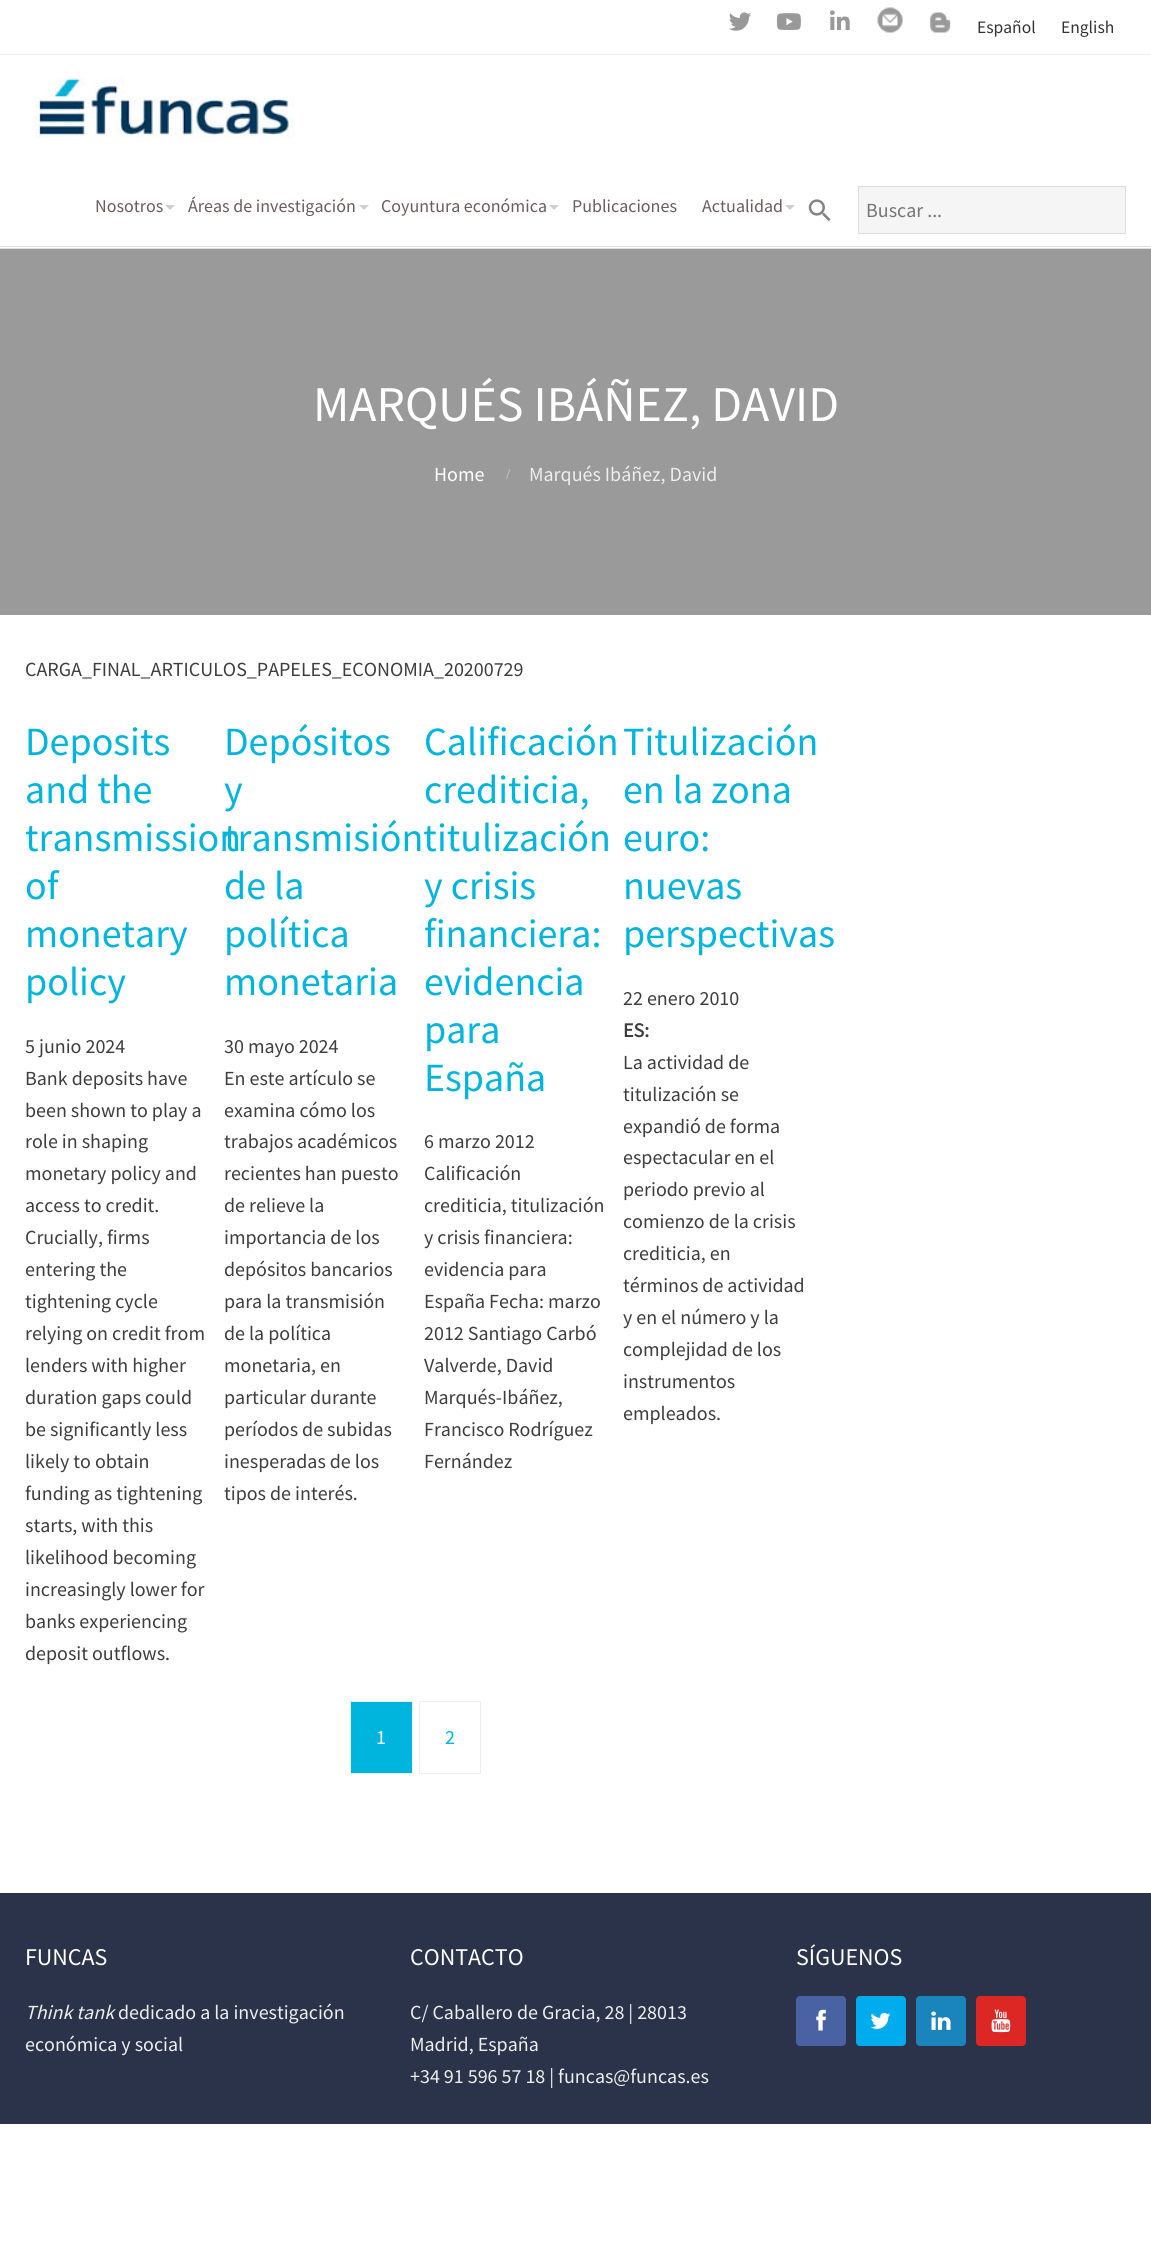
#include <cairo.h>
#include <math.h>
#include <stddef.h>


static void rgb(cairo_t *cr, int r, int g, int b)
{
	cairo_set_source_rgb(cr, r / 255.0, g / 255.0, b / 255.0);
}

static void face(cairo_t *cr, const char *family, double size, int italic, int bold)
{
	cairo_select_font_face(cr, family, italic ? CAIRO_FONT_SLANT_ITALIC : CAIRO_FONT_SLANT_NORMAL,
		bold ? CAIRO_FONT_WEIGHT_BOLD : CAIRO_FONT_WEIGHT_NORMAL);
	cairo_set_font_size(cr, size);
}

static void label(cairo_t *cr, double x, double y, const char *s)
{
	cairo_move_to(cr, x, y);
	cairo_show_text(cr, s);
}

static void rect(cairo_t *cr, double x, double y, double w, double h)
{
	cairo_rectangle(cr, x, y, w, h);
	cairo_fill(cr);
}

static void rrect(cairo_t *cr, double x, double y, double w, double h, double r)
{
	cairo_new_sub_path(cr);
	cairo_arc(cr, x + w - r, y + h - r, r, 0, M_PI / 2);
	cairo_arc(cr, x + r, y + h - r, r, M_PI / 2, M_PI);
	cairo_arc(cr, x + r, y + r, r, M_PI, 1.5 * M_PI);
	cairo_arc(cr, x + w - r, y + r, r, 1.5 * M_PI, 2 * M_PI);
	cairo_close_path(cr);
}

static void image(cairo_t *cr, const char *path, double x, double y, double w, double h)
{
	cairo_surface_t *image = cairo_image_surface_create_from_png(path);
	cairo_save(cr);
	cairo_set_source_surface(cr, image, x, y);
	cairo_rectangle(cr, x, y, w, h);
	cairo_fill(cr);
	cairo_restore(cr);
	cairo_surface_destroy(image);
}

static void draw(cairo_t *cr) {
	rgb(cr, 255, 255, 255);
	cairo_paint(cr);
	rgb(cr, 240, 240, 240);
	rect(cr, 0, 54, 1151, 1);
	image(cr, "image0.png", 729, 12, 22, 19);
	image(cr, "image1.png", 776, 13, 25, 17);
	image(cr, "image2.png", 830, 10, 20, 20);
	image(cr, "image3.png", 877, 7, 26, 26);
	image(cr, "image4.png", 929, 12, 22, 21);
	face(cr, "Source Sans Pro", 17.5, 0, 0);
	rgb(cr, 51, 51, 51);
	label(cr, 977, 33, "Español");
	label(cr, 1061, 33, "English");
	rgb(cr, 221, 221, 221);
	rect(cr, 0, 246, 1151, 1);
	image(cr, "image5.png", 35, 77, 260, 61);
	face(cr, "Source Sans Pro", 18, 0, 0);
	rgb(cr, 107, 92, 92);
	label(cr, 95, 212, "Nosotros");
	rgb(cr, 207, 207, 207);
	cairo_new_path(cr);
	cairo_move_to(cr, 165, 205);
	cairo_line_to(cr, 175, 205);
	cairo_line_to(cr, 170, 210);
	cairo_close_path(cr);
	cairo_fill(cr);
	rgb(cr, 107, 92, 92);
	label(cr, 188, 212, "Áreas de investigación");
	rgb(cr, 207, 207, 207);
	cairo_new_path(cr);
	cairo_move_to(cr, 359, 205);
	cairo_line_to(cr, 369, 205);
	cairo_line_to(cr, 364, 210);
	cairo_close_path(cr);
	cairo_fill(cr);
	rgb(cr, 107, 92, 92);
	label(cr, 381, 212, "Coyuntura económica");
	rgb(cr, 207, 207, 207);
	cairo_new_path(cr);
	cairo_move_to(cr, 549, 205);
	cairo_line_to(cr, 559, 205);
	cairo_line_to(cr, 554, 210);
	cairo_close_path(cr);
	cairo_fill(cr);
	rgb(cr, 107, 92, 92);
	label(cr, 572, 212, "Publicaciones");
	label(cr, 702, 212, "Actualidad");
	rgb(cr, 207, 207, 207);
	cairo_new_path(cr);
	cairo_move_to(cr, 785, 205);
	cairo_line_to(cr, 795, 205);
	cairo_line_to(cr, 790, 210);
	cairo_close_path(cr);
	cairo_fill(cr);
	image(cr, "image6.png", 808, 199, 23, 23);
	rgb(cr, 245, 245, 245);
	cairo_rectangle(cr, 858.5, 186.5, 267, 47);
	cairo_fill_preserve(cr);
	rgb(cr, 221, 221, 221);
	cairo_set_line_width(cr, 1);
	cairo_stroke(cr);
	face(cr, "Source Sans Pro", 20, 0, 0);
	rgb(cr, 117, 117, 117);
	label(cr, 866, 217, "Buscar ...");
	rgb(cr, 154, 154, 154);
	rect(cr, 0, 249, 1151, 366);
	rgb(cr, 221, 221, 221);
	rect(cr, 0, 248, 1151, 1);
	face(cr, "Source Sans Pro", 50, 0, 0);
	rgb(cr, 255, 255, 255);
	label(cr, 313, 421, "MARQUÉS IBÁÑEZ, DAVID");
	face(cr, "Source Sans Pro", 20, 0, 0);
	label(cr, 434, 481, "Home");
	face(cr, "Liberation Serif", 15, 0, 1);
	rgb(cr, 188, 188, 188);
	label(cr, 506, 479, "/");
	face(cr, "Source Sans Pro", 20, 0, 0);
	rgb(cr, 238, 238, 238);
	label(cr, 529, 481, "Marqués Ibáñez, David");
	rgb(cr, 61, 61, 61);
	label(cr, 25, 676, "CARGA_FINAL_ARTICULOS_PAPELES_ECONOMIA_20200729");
	face(cr, "Source Sans Pro", 40, 0, 0);
	rgb(cr, 0, 181, 221);
	label(cr, 224, 755, "Depósitos");
	label(cr, 224, 803, "y");
	label(cr, 25, 851, "transmission");
	label(cr, 224, 851, "transmisióntitulización");
	label(cr, 224, 899, "de la");
	label(cr, 224, 947, "política");
	label(cr, 224, 995, "monetaria");
	face(cr, "Source Sans Pro", 20, 0, 0);
	rgb(cr, 61, 61, 61);
	label(cr, 224, 1053, "30 mayo 2024");
	label(cr, 224, 1085, "En este artículo se");
	label(cr, 224, 1117, "examina cómo los");
	label(cr, 224, 1148, "trabajos académicos");
	label(cr, 224, 1180, "recientes han puesto");
	label(cr, 224, 1212, "de relieve la");
	label(cr, 224, 1244, "importancia de los");
	label(cr, 224, 1276, "depósitos bancarios");
	label(cr, 224, 1308, "para la transmisión");
	label(cr, 224, 1340, "de la política");
	label(cr, 224, 1372, "monetaria, en");
	label(cr, 224, 1404, "particular durante");
	label(cr, 224, 1436, "períodos de subidas");
	label(cr, 224, 1468, "inesperadas de los");
	label(cr, 224, 1500, "tipos de interés.");
	face(cr, "Source Sans Pro", 40, 0, 0);
	rgb(cr, 0, 181, 221);
	label(cr, 25, 755, "Deposits");
	label(cr, 25, 803, "and the");
	label(cr, 25, 899, "of");
	label(cr, 25, 947, "monetary");
	label(cr, 25, 995, "policy");
	face(cr, "Source Sans Pro", 20, 0, 0);
	rgb(cr, 61, 61, 61);
	label(cr, 25, 1053, "5 junio 2024");
	label(cr, 25, 1085, "Bank deposits have");
	label(cr, 25, 1117, "been shown to play a");
	label(cr, 25, 1148, "role in shaping");
	label(cr, 25, 1180, "monetary policy and");
	label(cr, 25, 1212, "access to credit.");
	label(cr, 25, 1244, "Crucially, firms");
	label(cr, 25, 1276, "entering the");
	label(cr, 25, 1308, "tightening cycle");
	label(cr, 25, 1340, "relying on credit from");
	label(cr, 25, 1372, "lenders with higher");
	label(cr, 25, 1404, "duration gaps could");
	label(cr, 25, 1436, "be significantly less");
	label(cr, 25, 1468, "likely to obtain");
	label(cr, 25, 1500, "funding as tightening");
	label(cr, 25, 1532, "starts, with this");
	label(cr, 25, 1564, "likelihood becoming");
	label(cr, 25, 1596, "increasingly lower for");
	label(cr, 25, 1628, "banks experiencing");
	label(cr, 25, 1660, "deposit outflows.");
	face(cr, "Source Sans Pro", 40, 0, 0);
	rgb(cr, 0, 181, 221);
	label(cr, 424, 755, "Calificación");
	label(cr, 424, 803, "crediticia,");
	label(cr, 424, 899, "y crisis");
	label(cr, 424, 947, "financiera:");
	label(cr, 424, 995, "evidencia");
	label(cr, 424, 1043, "para");
	label(cr, 424, 1091, "España");
	face(cr, "Source Sans Pro", 20, 0, 0);
	rgb(cr, 61, 61, 61);
	label(cr, 424, 1148, "6 marzo 2012");
	label(cr, 424, 1180, "Calificación");
	label(cr, 424, 1212, "crediticia, titulización");
	label(cr, 424, 1244, "y crisis financiera:");
	label(cr, 424, 1276, "evidencia para");
	label(cr, 424, 1308, "España Fecha: marzo");
	label(cr, 424, 1340, "2012 Santiago Carbó");
	label(cr, 424, 1372, "Valverde, David");
	label(cr, 424, 1404, "Marqués-Ibáñez,");
	label(cr, 424, 1436, "Francisco Rodríguez");
	label(cr, 424, 1468, "Fernández");
	face(cr, "Source Sans Pro", 40, 0, 0);
	rgb(cr, 0, 181, 221);
	label(cr, 623, 755, "Titulización");
	label(cr, 623, 803, "en la zona");
	label(cr, 623, 851, "euro:");
	label(cr, 623, 899, "nuevas");
	label(cr, 623, 947, "perspectivas");
	face(cr, "Source Sans Pro", 20, 0, 0);
	rgb(cr, 61, 61, 61);
	label(cr, 623, 1005, "22 enero 2010");
	face(cr, "Source Sans Pro", 20, 0, 1);
	label(cr, 623, 1037, "ES:");
	face(cr, "Source Sans Pro", 20, 0, 0);
	label(cr, 623, 1069, "La actividad de");
	label(cr, 623, 1101, "titulización se");
	label(cr, 623, 1133, "expandió de forma");
	label(cr, 623, 1164, "espectacular en el");
	label(cr, 623, 1196, "periodo previo al");
	label(cr, 623, 1228, "comienzo de la crisis");
	label(cr, 623, 1260, "crediticia, en");
	label(cr, 623, 1292, "términos de actividad");
	label(cr, 623, 1324, "y en el número y la");
	label(cr, 623, 1356, "complejidad de los");
	label(cr, 623, 1388, "instrumentos");
	label(cr, 623, 1420, "empleados.");
	rgb(cr, 0, 181, 221);
	cairo_rectangle(cr, 350.5, 1701.5, 62, 72);
	cairo_fill_preserve(cr);
	rgb(cr, 238, 238, 238);
	cairo_stroke(cr);
	rgb(cr, 255, 255, 255);
	label(cr, 376, 1744, "1");
	cairo_rectangle(cr, 419.5, 1701.5, 61, 72);
	rgb(cr, 238, 238, 238);
	cairo_stroke(cr);
	rgb(cr, 0, 181, 221);
	label(cr, 445, 1744, "2");
	rgb(cr, 42, 51, 73);
	rect(cr, 0, 1893, 1151, 231);
	face(cr, "Source Sans Pro", 24, 0, 0);
	rgb(cr, 255, 255, 255);
	label(cr, 25, 1965, "FUNCAS");
	face(cr, "Source Sans Pro", 20, 1, 0);
	rgb(cr, 238, 238, 238);
	label(cr, 25, 2019, "Think tank");
	face(cr, "Source Sans Pro", 20, 0, 0);
	label(cr, 118, 2019, "dedicado a la investigación");
	label(cr, 25, 2051, "económica y social");
	face(cr, "Source Sans Pro", 24, 0, 0);
	rgb(cr, 255, 255, 255);
	label(cr, 410, 1965, "CONTACTO");
	face(cr, "Source Sans Pro", 20, 0, 0);
	rgb(cr, 238, 238, 238);
	label(cr, 410, 2019, "C/ Caballero de Gracia, 28 | 28013");
	label(cr, 410, 2051, "Madrid, España");
	label(cr, 410, 2083, "+34 91 596 57 18 | funcas@funcas.es");
	face(cr, "Source Sans Pro", 24, 0, 0);
	rgb(cr, 255, 255, 255);
	label(cr, 796, 1965, "SÍGUENOS");
	rgb(cr, 72, 98, 163);
	rrect(cr, 796, 1996, 50, 50, 4);
	cairo_fill(cr);
	image(cr, "image7.png", 816, 2009, 10, 22);
	rgb(cr, 0, 172, 238);
	rrect(cr, 856, 1996, 50, 50, 4);
	cairo_fill(cr);
	image(cr, "image8.png", 870, 2012, 21, 17);
	rgb(cr, 26, 133, 188);
	rrect(cr, 916, 1996, 50, 50, 4);
	cairo_fill(cr);
	image(cr, "image9.png", 931, 2011, 20, 19);
	rgb(cr, 220, 39, 37);
	rrect(cr, 976, 1996, 50, 50, 4);
	cairo_fill(cr);
	image(cr, "image10.png", 991, 2009, 20, 24);
}

int main(void) {
	cairo_surface_t *surface = cairo_image_surface_create(CAIRO_FORMAT_RGB24, 1151, 2267);
	cairo_t *cr = cairo_create(surface);
	cairo_font_options_t *options = cairo_font_options_create();
	cairo_font_options_set_hint_metrics(options, CAIRO_HINT_METRICS_OFF);
	cairo_font_options_set_hint_style(options, CAIRO_HINT_STYLE_NONE);
	cairo_set_font_options(cr, options);
	cairo_set_miter_limit(cr, 4);
	draw(cr);
	cairo_surface_write_to_png(surface, "render.png");
	cairo_font_options_destroy(options);
	cairo_destroy(cr);
	cairo_surface_destroy(surface);
	return 0;
}
